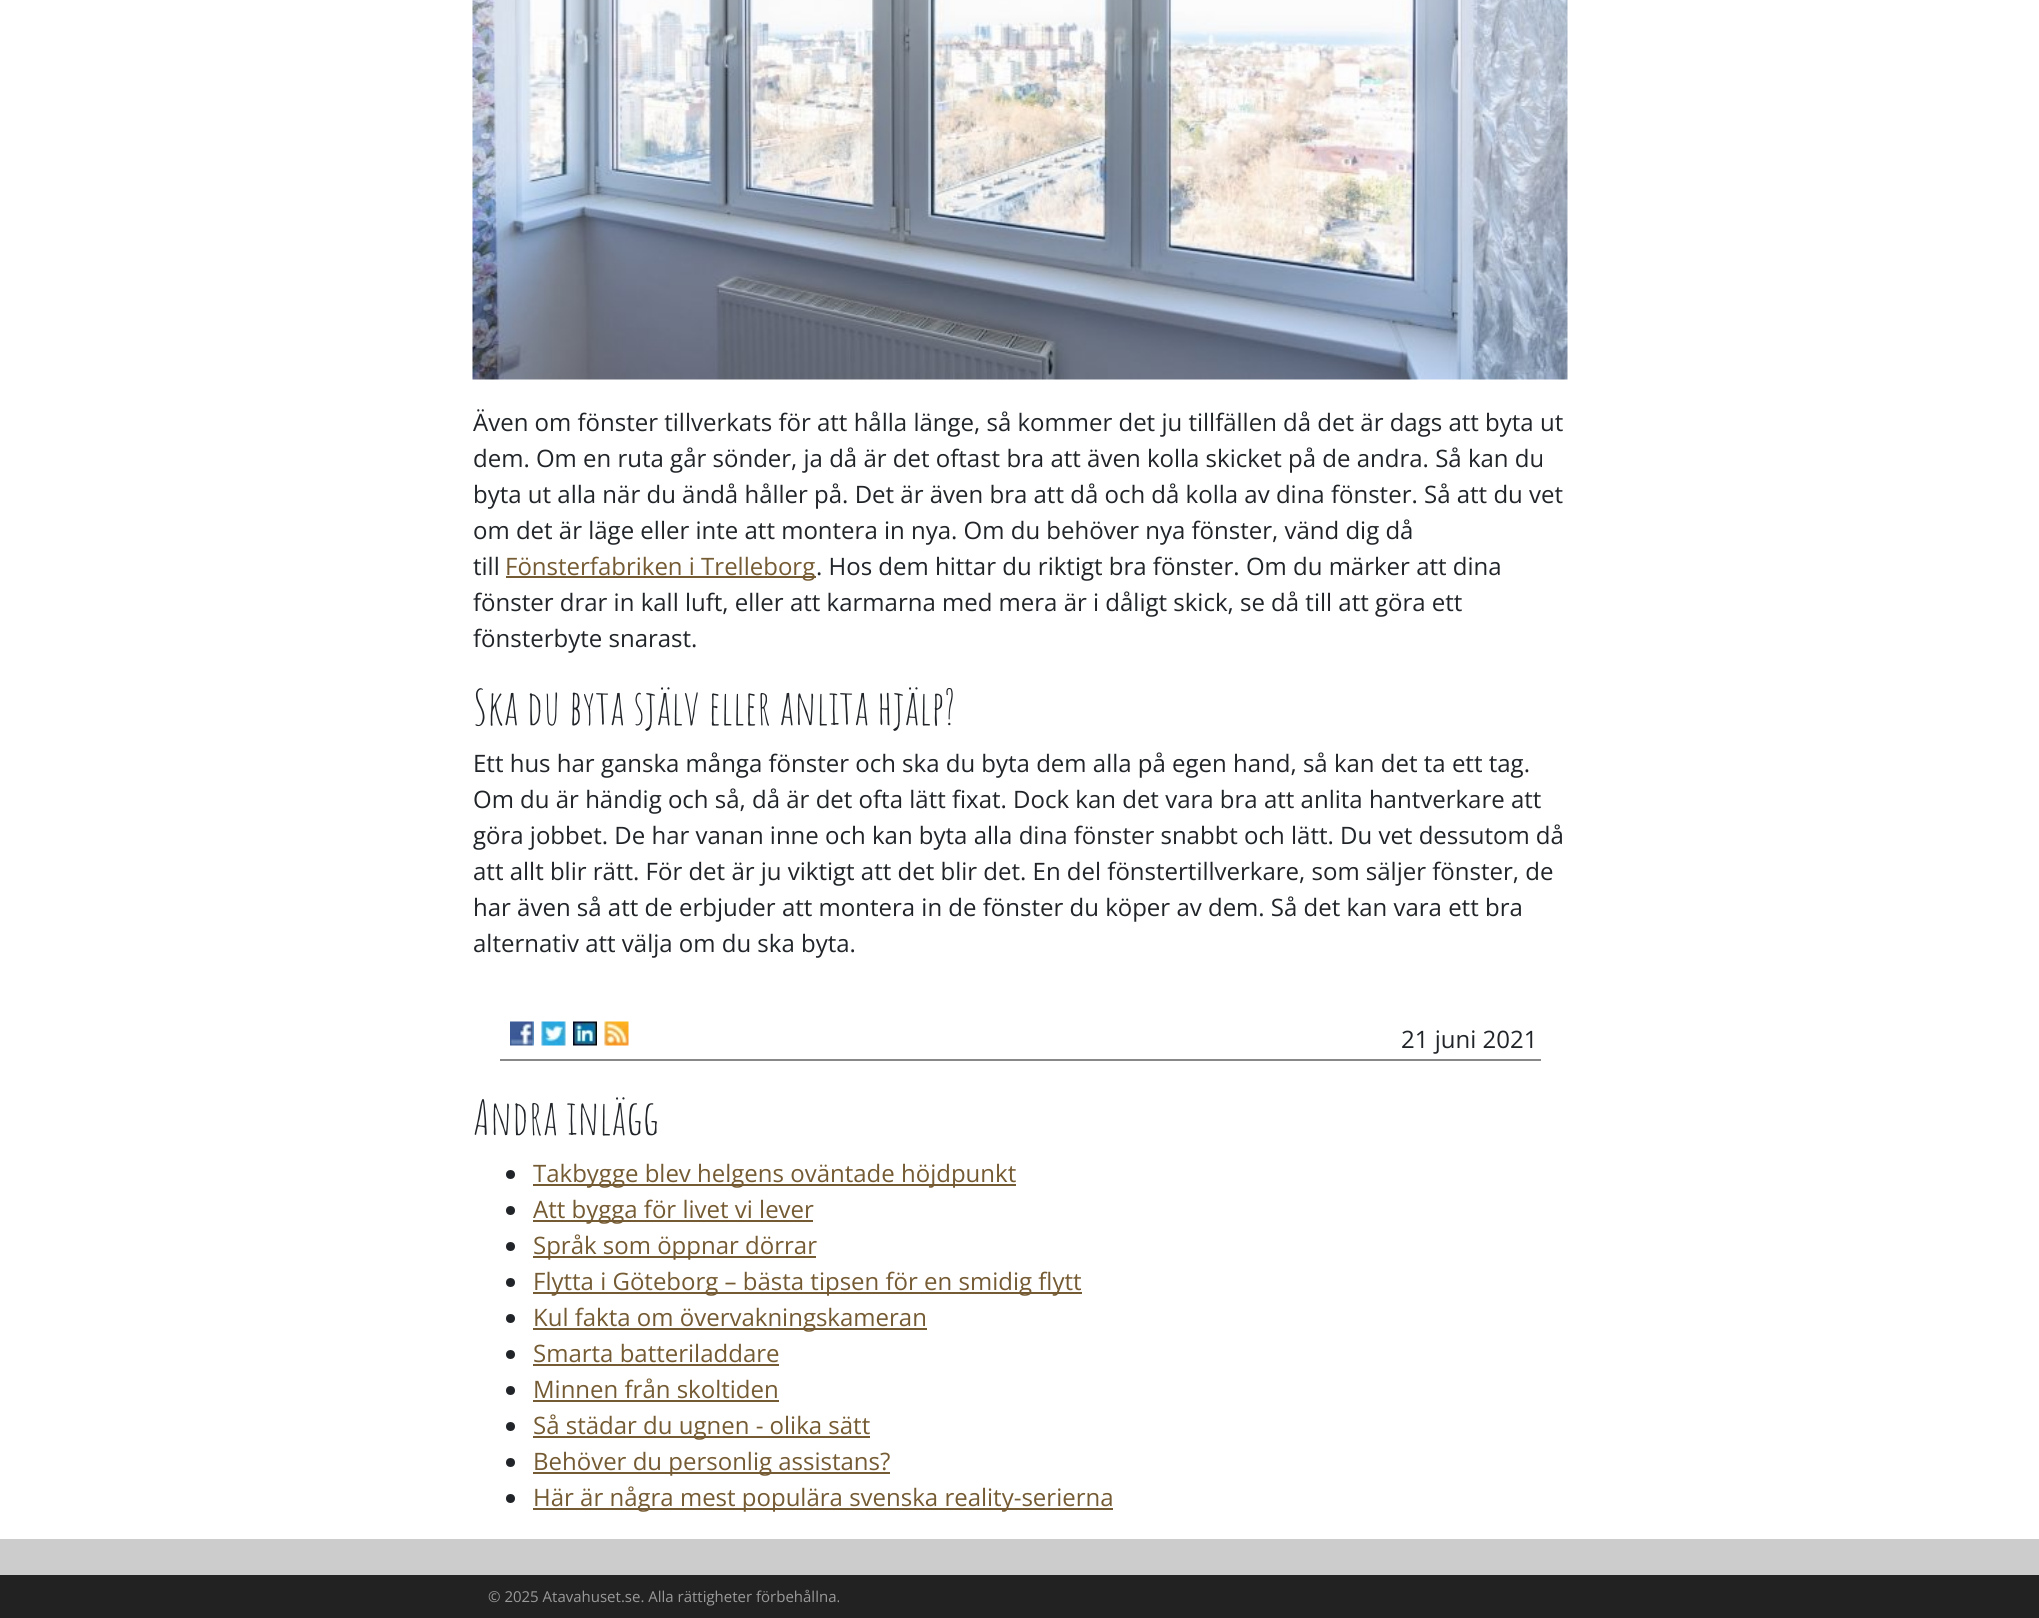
#include <cairo.h>
#include <math.h>
#include <stddef.h>


static void rgb(cairo_t *cr, int r, int g, int b)
{
	cairo_set_source_rgb(cr, r / 255.0, g / 255.0, b / 255.0);
}

static void face(cairo_t *cr, const char *family, double size, int italic, int bold)
{
	cairo_select_font_face(cr, family, italic ? CAIRO_FONT_SLANT_ITALIC : CAIRO_FONT_SLANT_NORMAL,
		bold ? CAIRO_FONT_WEIGHT_BOLD : CAIRO_FONT_WEIGHT_NORMAL);
	cairo_set_font_size(cr, size);
}

static void label(cairo_t *cr, double x, double y, const char *s)
{
	cairo_move_to(cr, x, y);
	cairo_show_text(cr, s);
}

static void rect(cairo_t *cr, double x, double y, double w, double h)
{
	cairo_rectangle(cr, x, y, w, h);
	cairo_fill(cr);
}

static void image(cairo_t *cr, const char *path, double x, double y, double w, double h)
{
	cairo_surface_t *image = cairo_image_surface_create_from_png(path);
	cairo_save(cr);
	cairo_set_source_surface(cr, image, x, y);
	cairo_rectangle(cr, x, y, w, h);
	cairo_fill(cr);
	cairo_restore(cr);
	cairo_surface_destroy(image);
}

static void draw(cairo_t *cr) {
	rgb(cr, 255, 255, 255);
	cairo_paint(cr);
	image(cr, "image0.png", 472, 0, 1096, 380);
	face(cr, "Open Sans", 24, 0, 0);
	rgb(cr, 33, 37, 41);
	label(cr, 473, 431, "Även om fönster tillverkats för att hålla länge, så kommer det ju tillfällen då det är dags att byta ut");
	label(cr, 473, 467, "dem. Om en ruta går sönder, ja då är det oftast bra att även kolla skicket på de andra. Så kan du");
	label(cr, 473, 503, "byta ut alla när du ändå håller på. Det är även bra att då och då kolla av dina fönster. Så att du vet");
	label(cr, 473, 539, "om det är läge eller inte att montera in nya. Om du behöver nya fönster, vänd dig då");
	label(cr, 473, 575, "till");
	rgb(cr, 117, 91, 51);
	rect(cr, 506, 576, 310, 2);
	label(cr, 505, 575, "Fönsterfabriken i Trelleborg");
	rgb(cr, 33, 37, 41);
	label(cr, 816, 575, ". Hos dem hittar du riktigt bra fönster. Om du märker att dina");
	label(cr, 473, 611, "fönster drar in kall luft, eller att karmarna med mera är i dåligt skick, se då till att göra ett");
	label(cr, 473, 647, "fönsterbyte snarast.");
	face(cr, "Amatic SC", 48, 0, 0);
	label(cr, 473, 725, "Ska du byta själv eller anlita hjälp?");
	face(cr, "Open Sans", 24, 0, 0);
	label(cr, 473, 772, "Ett hus har ganska många fönster och ska du byta dem alla på egen hand, så kan det ta ett tag.");
	label(cr, 473, 808, "Om du är händig och så, då är det ofta lätt fixat. Dock kan det vara bra att anlita hantverkare att");
	label(cr, 473, 844, "göra jobbet. De har vanan inne och kan byta alla dina fönster snabbt och lätt. Du vet dessutom då");
	label(cr, 473, 880, "att allt blir rätt. För det är ju viktigt att det blir det. En del fönstertillverkare, som säljer fönster, de");
	label(cr, 473, 916, "har även så att de erbjuder att montera in de fönster du köper av dem. Så det kan vara ett bra");
	label(cr, 473, 952, "alternativ att välja om du ska byta.");
	image(cr, "image1.png", 510, 1021, 24, 25);
	image(cr, "image2.png", 541, 1021, 25, 25);
	image(cr, "image3.png", 573, 1021, 24, 25);
	image(cr, "image4.png", 604, 1021, 25, 25);
	label(cr, 1401, 1048, "21 juni 2021");
	rgb(cr, 136, 136, 136);
	rect(cr, 500, 1059, 1041, 2);
	face(cr, "Amatic SC", 48, 0, 0);
	rgb(cr, 33, 37, 41);
	label(cr, 473, 1135, "Andra inlägg");
	cairo_new_path(cr);
	cairo_arc(cr, 510.5, 1174.5, 4.5, 0, 2 * M_PI);
	cairo_fill(cr);
	rgb(cr, 117, 91, 51);
	rect(cr, 533, 1184, 483, 2);
	face(cr, "Open Sans", 24, 0, 0);
	label(cr, 533, 1182, "Takbygge blev helgens oväntade höjdpunkt");
	rgb(cr, 33, 37, 41);
	cairo_new_path(cr);
	cairo_arc(cr, 510.5, 1210.5, 4.5, 0, 2 * M_PI);
	cairo_fill(cr);
	rgb(cr, 117, 91, 51);
	rect(cr, 533, 1220, 280, 2);
	label(cr, 533, 1218, "Att bygga för livet vi lever");
	rgb(cr, 33, 37, 41);
	cairo_new_path(cr);
	cairo_arc(cr, 510.5, 1246.5, 4.5, 0, 2 * M_PI);
	cairo_fill(cr);
	rgb(cr, 117, 91, 51);
	rect(cr, 533, 1256, 283, 2);
	label(cr, 533, 1254, "Språk som öppnar dörrar");
	rgb(cr, 33, 37, 41);
	cairo_new_path(cr);
	cairo_arc(cr, 510.5, 1282.5, 4.5, 0, 2 * M_PI);
	cairo_fill(cr);
	rgb(cr, 117, 91, 51);
	rect(cr, 533, 1292, 549, 2);
	label(cr, 533, 1290, "Flytta i Göteborg – bästa tipsen för en smidig flytt");
	rgb(cr, 33, 37, 41);
	cairo_new_path(cr);
	cairo_arc(cr, 510.5, 1318.5, 4.5, 0, 2 * M_PI);
	cairo_fill(cr);
	rgb(cr, 117, 91, 51);
	rect(cr, 533, 1328, 394, 2);
	label(cr, 533, 1326, "Kul fakta om övervakningskameran");
	rgb(cr, 33, 37, 41);
	cairo_new_path(cr);
	cairo_arc(cr, 510.5, 1354.5, 4.5, 0, 2 * M_PI);
	cairo_fill(cr);
	rgb(cr, 117, 91, 51);
	label(cr, 533, 1362, "Smarta batteriladdare");
	rect(cr, 533, 1364, 246, 2);
	rgb(cr, 33, 37, 41);
	cairo_new_path(cr);
	cairo_arc(cr, 510.5, 1390.5, 4.5, 0, 2 * M_PI);
	cairo_fill(cr);
	rgb(cr, 117, 91, 51);
	label(cr, 533, 1398, "Minnen från skoltiden");
	rect(cr, 533, 1400, 246, 2);
	rgb(cr, 33, 37, 41);
	cairo_new_path(cr);
	cairo_arc(cr, 510.5, 1426.5, 4.5, 0, 2 * M_PI);
	cairo_fill(cr);
	rgb(cr, 117, 91, 51);
	rect(cr, 533, 1436, 337, 2);
	label(cr, 533, 1434, "Så städar du ugnen - olika sätt");
	rgb(cr, 33, 37, 41);
	cairo_new_path(cr);
	cairo_arc(cr, 510.5, 1462.5, 4.5, 0, 2 * M_PI);
	cairo_fill(cr);
	rgb(cr, 117, 91, 51);
	rect(cr, 533, 1472, 357, 2);
	label(cr, 533, 1470, "Behöver du personlig assistans?");
	rgb(cr, 33, 37, 41);
	cairo_new_path(cr);
	cairo_arc(cr, 510.5, 1498.5, 4.5, 0, 2 * M_PI);
	cairo_fill(cr);
	rgb(cr, 117, 91, 51);
	rect(cr, 533, 1508, 580, 2);
	label(cr, 533, 1506, "Här är några mest populära svenska reality-serierna");
	rgb(cr, 204, 204, 204);
	rect(cr, 0, 1539, 2039, 36);
	rgb(cr, 34, 34, 34);
	rect(cr, 0, 1575, 2039, 43);
	face(cr, "Open Sans", 15, 0, 0);
	rgb(cr, 153, 153, 153);
	label(cr, 488, 1602, "© 2025 Atavahuset.se. Alla rättigheter förbehållna.");
}

int main(void) {
	cairo_surface_t *surface = cairo_image_surface_create(CAIRO_FORMAT_RGB24, 2039, 1618);
	cairo_t *cr = cairo_create(surface);
	cairo_font_options_t *options = cairo_font_options_create();
	cairo_font_options_set_hint_metrics(options, CAIRO_HINT_METRICS_OFF);
	cairo_font_options_set_hint_style(options, CAIRO_HINT_STYLE_NONE);
	cairo_set_font_options(cr, options);
	cairo_set_miter_limit(cr, 4);
	draw(cr);
	cairo_surface_write_to_png(surface, "render.png");
	cairo_font_options_destroy(options);
	cairo_destroy(cr);
	cairo_surface_destroy(surface);
	return 0;
}
